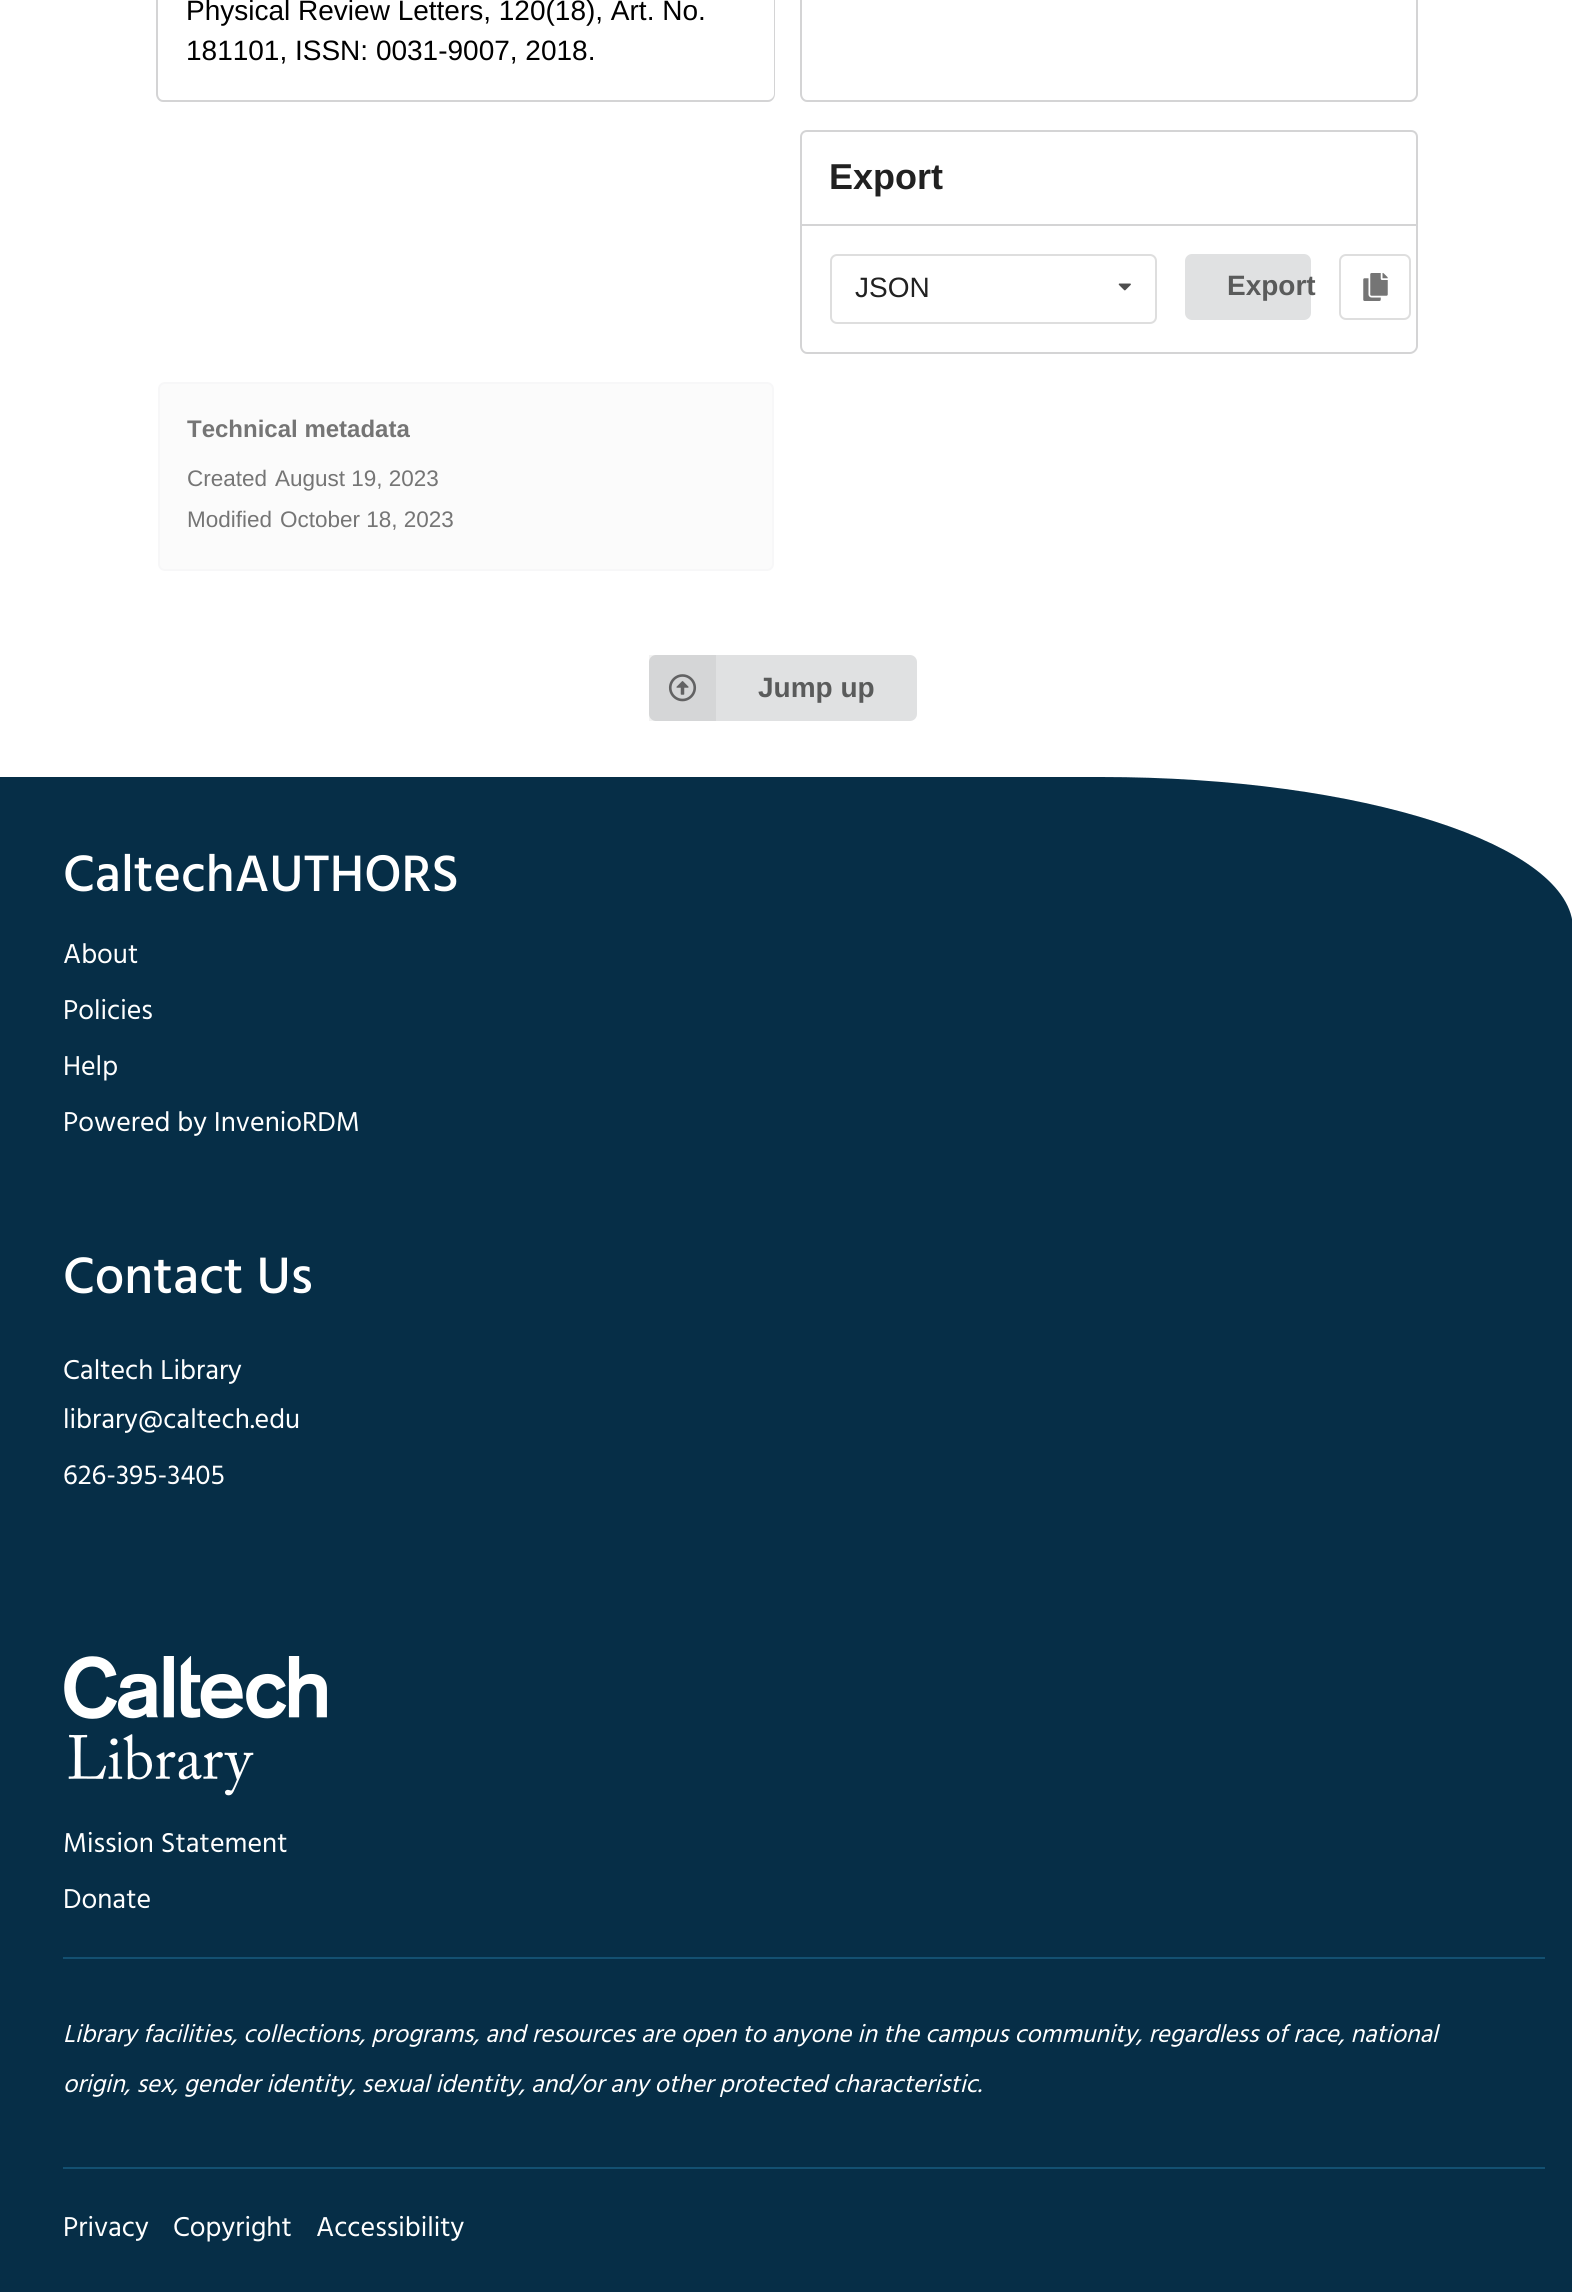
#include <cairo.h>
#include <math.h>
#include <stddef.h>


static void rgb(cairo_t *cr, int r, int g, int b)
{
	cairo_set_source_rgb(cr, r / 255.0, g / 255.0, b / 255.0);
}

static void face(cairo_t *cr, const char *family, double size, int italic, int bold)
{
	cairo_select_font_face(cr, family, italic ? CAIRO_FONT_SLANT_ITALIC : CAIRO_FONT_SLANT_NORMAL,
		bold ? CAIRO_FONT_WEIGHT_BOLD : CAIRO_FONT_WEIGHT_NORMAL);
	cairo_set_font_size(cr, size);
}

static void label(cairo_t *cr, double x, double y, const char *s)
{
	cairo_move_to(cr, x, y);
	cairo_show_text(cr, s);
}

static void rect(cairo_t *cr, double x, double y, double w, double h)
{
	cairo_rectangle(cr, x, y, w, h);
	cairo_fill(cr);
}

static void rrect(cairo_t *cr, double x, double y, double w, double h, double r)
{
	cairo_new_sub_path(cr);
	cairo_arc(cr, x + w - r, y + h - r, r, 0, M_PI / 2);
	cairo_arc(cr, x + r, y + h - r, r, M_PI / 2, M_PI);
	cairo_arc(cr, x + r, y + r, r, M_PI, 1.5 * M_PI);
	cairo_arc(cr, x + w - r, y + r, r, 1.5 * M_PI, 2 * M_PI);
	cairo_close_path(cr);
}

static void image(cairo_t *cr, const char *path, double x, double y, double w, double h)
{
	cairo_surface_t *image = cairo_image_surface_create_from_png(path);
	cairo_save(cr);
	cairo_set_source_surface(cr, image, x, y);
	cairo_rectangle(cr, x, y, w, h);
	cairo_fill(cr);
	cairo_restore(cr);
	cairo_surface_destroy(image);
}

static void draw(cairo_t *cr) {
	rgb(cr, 255, 255, 255);
	cairo_paint(cr);
	rgb(cr, 212, 212, 213);
	cairo_set_fill_rule(cr, CAIRO_FILL_RULE_EVEN_ODD);
	cairo_new_path(cr);
	cairo_move_to(cr, 156, -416);
	cairo_line_to(cr, 775, -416);
	cairo_line_to(cr, 775, 94);
	cairo_curve_to(cr, 775, 98, 772, 102, 768, 102);
	cairo_line_to(cr, 163, 102);
	cairo_curve_to(cr, 159, 102, 156, 98, 156, 94);
	cairo_close_path(cr);
	cairo_move_to(cr, 158, -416);
	cairo_line_to(cr, 774, -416);
	cairo_line_to(cr, 774, 94);
	cairo_curve_to(cr, 774, 97, 771, 100, 768, 100);
	cairo_line_to(cr, 163, 100);
	cairo_curve_to(cr, 160, 100, 158, 97, 158, 94);
	cairo_close_path(cr);
	cairo_fill(cr);
	face(cr, "Liberation Sans", 28, 0, 0);
	rgb(cr, 0, 0, 0);
	label(cr, 186, 20, "Physical Review Letters, 120(18), Art. No.");
	label(cr, 186, 60, "181101, ISSN: 0031-9007, 2018.");
	rgb(cr, 212, 212, 213);
	cairo_new_path(cr);
	cairo_move_to(cr, 800, -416);
	cairo_line_to(cr, 1418, -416);
	cairo_line_to(cr, 1418, 94);
	cairo_curve_to(cr, 1418, 98, 1414, 102, 1410, 102);
	cairo_line_to(cr, 807, 102);
	cairo_curve_to(cr, 803, 102, 800, 98, 800, 94);
	cairo_close_path(cr);
	cairo_move_to(cr, 802, -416);
	cairo_line_to(cr, 1416, -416);
	cairo_line_to(cr, 1416, 94);
	cairo_curve_to(cr, 1416, 97, 1413, 100, 1410, 100);
	cairo_line_to(cr, 807, 100);
	cairo_curve_to(cr, 804, 100, 802, 97, 802, 94);
	cairo_close_path(cr);
	cairo_fill(cr);
	cairo_new_path(cr);
	cairo_move_to(cr, 807, 131);
	cairo_line_to(cr, 1411, 131);
	cairo_curve_to(cr, 1414.5, 131, 1417, 133.5, 1417, 137);
	cairo_line_to(cr, 1417, 225);
	cairo_line_to(cr, 801, 225);
	cairo_line_to(cr, 801, 137);
	cairo_curve_to(cr, 801, 133.5, 803.5, 131, 807, 131);
	cairo_close_path(cr);
	cairo_stroke(cr);
	face(cr, "Liberation Sans", 36, 0, 1);
	rgb(cr, 33, 33, 33);
	label(cr, 829, 189, "Export");
	rgb(cr, 212, 212, 213);
	cairo_new_path(cr);
	cairo_move_to(cr, 800, 226);
	cairo_line_to(cr, 1418, 226);
	cairo_line_to(cr, 1418, 346);
	cairo_curve_to(cr, 1418, 350, 1414, 354, 1410, 354);
	cairo_line_to(cr, 807, 354);
	cairo_curve_to(cr, 803, 354, 800, 350, 800, 346);
	cairo_close_path(cr);
	cairo_move_to(cr, 802, 226);
	cairo_line_to(cr, 1416, 226);
	cairo_line_to(cr, 1416, 346);
	cairo_curve_to(cr, 1416, 349, 1413, 352, 1410, 352);
	cairo_line_to(cr, 807, 352);
	cairo_curve_to(cr, 804, 352, 802, 349, 802, 346);
	cairo_close_path(cr);
	cairo_fill(cr);
	rrect(cr, 831, 255, 325, 68, 6);
	rgb(cr, 222, 222, 222);
	cairo_stroke(cr);
	face(cr, "Liberation Sans", 28, 0, 0);
	rgb(cr, 33, 33, 33);
	label(cr, 855, 297, "JSON");
	image(cr, "image0.png", 1118, 283, 13, 8);
	rgb(cr, 224, 225, 226);
	rrect(cr, 1185, 254, 126, 66, 7);
	cairo_fill(cr);
	face(cr, "Liberation Sans", 28, 0, 1);
	rgb(cr, 90, 91, 91);
	label(cr, 1227, 295, "Export");
	rrect(cr, 1340, 255, 70, 64, 6);
	rgb(cr, 222, 222, 222);
	cairo_stroke(cr);
	image(cr, "image1.png", 1363, 273, 25, 28);
	rgb(cr, 251, 251, 251);
	rrect(cr, 159, 383, 614, 187, 6);
	cairo_fill_preserve(cr);
	rgb(cr, 247, 247, 248);
	cairo_stroke(cr);
	face(cr, "Liberation Sans", 24, 0, 1);
	rgb(cr, 117, 117, 117);
	label(cr, 187, 437, "Technical metadata");
	face(cr, "Liberation Sans", 22.5, 0, 0);
	label(cr, 187, 486, "Created");
	label(cr, 275, 486, "August 19, 2023");
	label(cr, 187, 527, "Modified");
	label(cr, 280, 527, "October 18, 2023");
	rgb(cr, 224, 225, 226);
	rrect(cr, 649, 655, 268, 66, 7);
	cairo_fill(cr);
	cairo_set_source_rgba(cr, 0, 0, 0, 0.05);
	rect(cr, 649, 655, 67, 66);
	image(cr, "image2.png", 668, 674, 29, 28);
	face(cr, "Liberation Sans", 28, 0, 1);
	rgb(cr, 90, 91, 91);
	label(cr, 758, 697, "Jump up");
	rgb(cr, 6, 46, 71);
	cairo_set_fill_rule(cr, CAIRO_FILL_RULE_WINDING);
	cairo_new_path(cr);
	cairo_move_to(cr, 0, 777);
	cairo_line_to(cr, 1101, 777);
	cairo_curve_to(cr, 1362, 777, 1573, 845, 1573, 929);
	cairo_line_to(cr, 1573, 2292);
	cairo_line_to(cr, 0, 2292);
	cairo_close_path(cr);
	cairo_fill(cr);
	face(cr, "Hind Medium", 52.5, 0, 0);
	rgb(cr, 255, 255, 255);
	label(cr, 63, 891, "CaltechAUTHORS");
	face(cr, "Hind", 28, 0, 0);
	label(cr, 63, 963, "About");
	label(cr, 63, 1019, "Policies");
	label(cr, 63, 1075, "Help");
	label(cr, 63, 1131, "Powered by InvenioRDM");
	face(cr, "Hind Medium", 52.5, 0, 0);
	label(cr, 63, 1293, "Contact Us");
	face(cr, "Hind", 28, 0, 0);
	label(cr, 63, 1379, "Caltech Library");
	label(cr, 63, 1428, "library@caltech.edu");
	label(cr, 63, 1484, "626-395-3405");
	image(cr, "image3.png", 64, 1656, 263, 140);
	label(cr, 63, 1852, "Mission Statement");
	label(cr, 63, 1908, "Donate");
	rgb(cr, 19, 80, 113);
	rect(cr, 63, 1957, 1482, 2);
	rect(cr, 63, 2167, 1482, 2);
	face(cr, "Hind", 25.2, 1, 0);
	rgb(cr, 255, 255, 255);
	label(cr, 63, 2042, "Library facilities, collections, programs, and resources are open to anyone in the campus community, regardless of race, national");
	label(cr, 63, 2092, "origin, sex, gender identity, sexual identity, and/or any other protected characteristic.");
	face(cr, "Hind", 28, 0, 0);
	label(cr, 63, 2236, "Privacy");
	label(cr, 173, 2236, "Copyright");
	label(cr, 316, 2236, "Accessibility");
}

int main(void) {
	cairo_surface_t *surface = cairo_image_surface_create(CAIRO_FORMAT_RGB24, 1572, 2292);
	cairo_t *cr = cairo_create(surface);
	cairo_font_options_t *options = cairo_font_options_create();
	cairo_font_options_set_hint_metrics(options, CAIRO_HINT_METRICS_OFF);
	cairo_font_options_set_hint_style(options, CAIRO_HINT_STYLE_NONE);
	cairo_set_font_options(cr, options);
	cairo_set_miter_limit(cr, 4);
	draw(cr);
	cairo_surface_write_to_png(surface, "render.png");
	cairo_font_options_destroy(options);
	cairo_destroy(cr);
	cairo_surface_destroy(surface);
	return 0;
}
